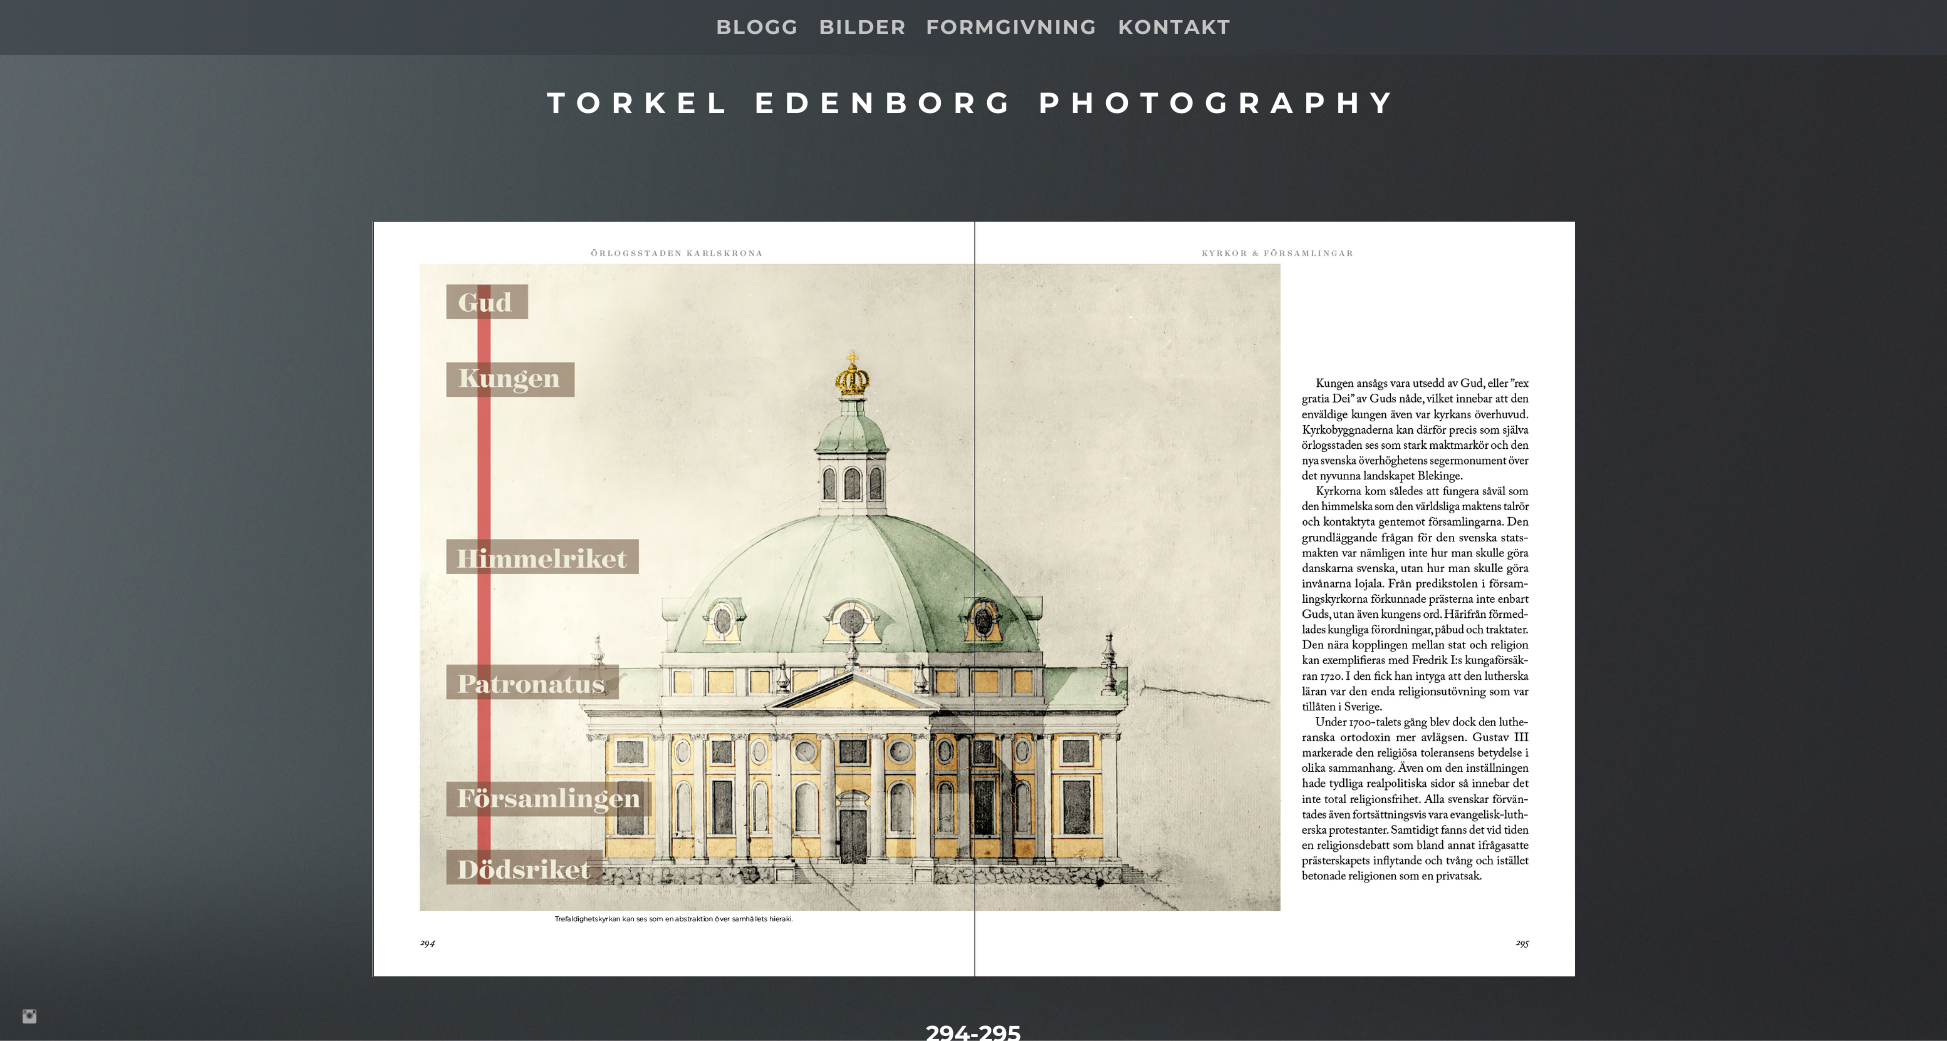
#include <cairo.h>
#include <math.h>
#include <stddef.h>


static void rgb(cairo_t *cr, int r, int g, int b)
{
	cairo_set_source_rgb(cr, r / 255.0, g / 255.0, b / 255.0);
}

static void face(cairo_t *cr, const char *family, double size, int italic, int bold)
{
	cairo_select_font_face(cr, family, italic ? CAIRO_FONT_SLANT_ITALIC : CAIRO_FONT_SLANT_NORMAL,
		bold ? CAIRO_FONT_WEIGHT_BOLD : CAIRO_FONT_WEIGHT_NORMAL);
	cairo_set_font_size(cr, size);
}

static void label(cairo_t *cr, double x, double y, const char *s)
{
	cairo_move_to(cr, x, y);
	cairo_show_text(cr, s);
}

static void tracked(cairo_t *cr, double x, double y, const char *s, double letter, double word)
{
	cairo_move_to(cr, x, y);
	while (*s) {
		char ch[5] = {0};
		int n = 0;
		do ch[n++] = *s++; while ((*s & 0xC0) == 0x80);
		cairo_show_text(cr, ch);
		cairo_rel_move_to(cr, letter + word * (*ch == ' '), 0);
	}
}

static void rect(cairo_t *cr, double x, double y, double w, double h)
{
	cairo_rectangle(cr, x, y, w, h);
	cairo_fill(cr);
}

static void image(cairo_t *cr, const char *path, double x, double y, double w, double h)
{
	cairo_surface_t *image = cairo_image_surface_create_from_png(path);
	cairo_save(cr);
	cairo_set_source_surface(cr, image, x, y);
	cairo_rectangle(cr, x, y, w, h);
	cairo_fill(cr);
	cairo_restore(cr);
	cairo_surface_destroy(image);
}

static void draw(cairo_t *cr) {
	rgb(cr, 255, 255, 255);
	cairo_paint(cr);
	image(cr, "image0.png", 0, 0, 1947, 1041);
	cairo_set_source_rgba(cr, 0.212, 0.231, 0.255, 0.6);
	rect(cr, 0, 0, 1947, 55);
	face(cr, "Montserrat", 20, 0, 1);
	rgb(cr, 196, 196, 196);
	tracked(cr, 716, 34, "BLOGG", 1.5, 0);
	tracked(cr, 819, 34, "BILDER", 1.5, 0);
	tracked(cr, 926, 34, "FORMGIVNING", 1.5, 0);
	tracked(cr, 1118, 34, "KONTAKT", 1.5, 0);
	face(cr, "Montserrat", 29, 0, 1);
	rgb(cr, 255, 255, 255);
	tracked(cr, 547, 113, "TORKEL EDENBORG PHOTOGRAPHY", 11, 0);
	image(cr, "image1.png", 22, 1009, 15, 15);
	image(cr, "image2.png", 372, 221, 1203, 756);
	face(cr, "Montserrat", 23, 0, 1);
	label(cr, 926, 1042, "294-295");
}

int main(void) {
	cairo_surface_t *surface = cairo_image_surface_create(CAIRO_FORMAT_RGB24, 1947, 1041);
	cairo_t *cr = cairo_create(surface);
	cairo_font_options_t *options = cairo_font_options_create();
	cairo_font_options_set_hint_metrics(options, CAIRO_HINT_METRICS_OFF);
	cairo_font_options_set_hint_style(options, CAIRO_HINT_STYLE_NONE);
	cairo_set_font_options(cr, options);
	cairo_set_miter_limit(cr, 4);
	draw(cr);
	cairo_surface_write_to_png(surface, "render.png");
	cairo_font_options_destroy(options);
	cairo_destroy(cr);
	cairo_surface_destroy(surface);
	return 0;
}
